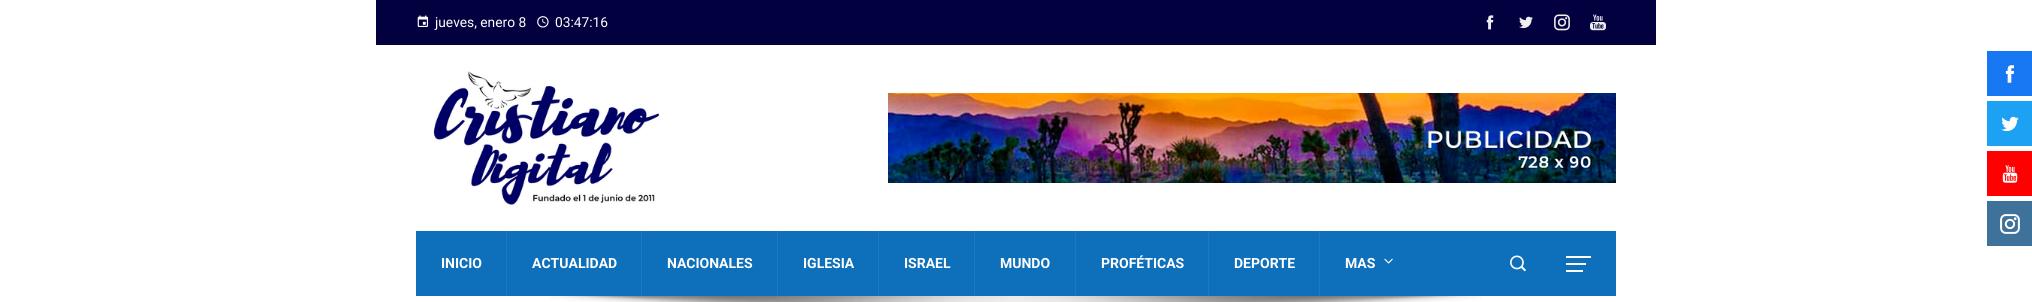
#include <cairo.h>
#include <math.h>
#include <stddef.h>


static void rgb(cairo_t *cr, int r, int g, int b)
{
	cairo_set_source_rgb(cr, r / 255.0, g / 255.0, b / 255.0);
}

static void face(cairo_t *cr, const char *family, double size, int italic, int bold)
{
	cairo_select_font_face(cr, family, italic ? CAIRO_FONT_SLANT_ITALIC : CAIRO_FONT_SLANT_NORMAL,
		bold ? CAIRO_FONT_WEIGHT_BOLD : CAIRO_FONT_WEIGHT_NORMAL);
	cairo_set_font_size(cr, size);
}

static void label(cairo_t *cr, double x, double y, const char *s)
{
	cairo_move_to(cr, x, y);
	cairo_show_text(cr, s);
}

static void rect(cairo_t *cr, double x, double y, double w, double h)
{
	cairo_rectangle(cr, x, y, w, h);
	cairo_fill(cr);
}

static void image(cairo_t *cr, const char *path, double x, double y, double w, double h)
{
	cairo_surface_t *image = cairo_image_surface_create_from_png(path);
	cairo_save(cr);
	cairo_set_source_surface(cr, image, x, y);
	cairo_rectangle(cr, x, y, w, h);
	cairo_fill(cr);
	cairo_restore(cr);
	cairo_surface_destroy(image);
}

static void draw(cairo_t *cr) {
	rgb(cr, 255, 255, 255);
	cairo_paint(cr);
	rgb(cr, 2, 0, 63);
	rect(cr, 376, 0, 1280, 45);
	image(cr, "image0.png", 417, 15, 12, 12);
	face(cr, "Roboto", 13.75, 0, 0);
	rgb(cr, 255, 255, 255);
	label(cr, 435, 27, "jueves, enero 8");
	image(cr, "image1.png", 537, 16, 12, 12);
	label(cr, 555, 27, "03:47:16");
	image(cr, "image2.png", 1486, 15, 8, 15);
	image(cr, "image3.png", 1519, 16, 14, 13);
	image(cr, "image4.png", 1554, 14, 16, 17);
	image(cr, "image5.png", 1590, 14, 16, 17);
	image(cr, "image6.png", 433, 71, 227, 134);
	image(cr, "image7.png", 888, 93, 728, 90);
	rgb(cr, 14, 111, 186);
	rect(cr, 416, 231, 1200, 65);
	face(cr, "Roboto", 14, 0, 1);
	rgb(cr, 255, 255, 255);
	label(cr, 441, 268, "INICIO");
	rgb(cr, 31, 121, 191);
	rect(cr, 506, 231, 1, 65);
	rgb(cr, 255, 255, 255);
	label(cr, 532, 268, "ACTUALIDAD");
	rgb(cr, 31, 121, 191);
	rect(cr, 641, 231, 1, 65);
	rgb(cr, 255, 255, 255);
	label(cr, 667, 268, "NACIONALES");
	rgb(cr, 31, 121, 191);
	rect(cr, 777, 231, 1, 65);
	rgb(cr, 255, 255, 255);
	label(cr, 803, 268, "IGLESIA");
	rgb(cr, 31, 121, 191);
	rect(cr, 878, 231, 1, 65);
	rgb(cr, 255, 255, 255);
	label(cr, 904, 268, "ISRAEL");
	rgb(cr, 31, 121, 191);
	rect(cr, 974, 231, 1, 65);
	rgb(cr, 255, 255, 255);
	label(cr, 1000, 268, "MUNDO");
	rgb(cr, 31, 121, 191);
	rect(cr, 1075, 231, 1, 65);
	rgb(cr, 255, 255, 255);
	label(cr, 1101, 268, "PROFÉTICAS");
	rgb(cr, 31, 121, 191);
	rect(cr, 1208, 231, 1, 65);
	rgb(cr, 255, 255, 255);
	label(cr, 1234, 268, "DEPORTE");
	rgb(cr, 31, 121, 191);
	rect(cr, 1319, 231, 1, 65);
	rgb(cr, 255, 255, 255);
	label(cr, 1345, 268, "MAS");
	image(cr, "image8.png", 1384, 258, 9, 6);
	image(cr, "image9.png", 1510, 255, 16, 17);
	rect(cr, 1566, 256, 25, 2);
	rect(cr, 1566, 263, 20, 2);
	rect(cr, 1566, 270, 17, 2);
	image(cr, "image10.png", 549, 296, 933, 6);
	rgb(cr, 24, 119, 242);
	rect(cr, 1987, 51, 45, 45);
	image(cr, "image11.png", 2005, 65, 9, 18);
	rgb(cr, 29, 161, 242);
	rect(cr, 1987, 101, 45, 45);
	image(cr, "image12.png", 2001, 116, 18, 16);
	rgb(cr, 255, 0, 0);
	rect(cr, 1987, 151, 45, 45);
	image(cr, "image13.png", 2002, 165, 16, 18);
	rgb(cr, 63, 114, 155);
	rect(cr, 1987, 201, 45, 45);
	image(cr, "image14.png", 2000, 214, 20, 20);
}

int main(void) {
	cairo_surface_t *surface = cairo_image_surface_create(CAIRO_FORMAT_RGB24, 2032, 302);
	cairo_t *cr = cairo_create(surface);
	cairo_font_options_t *options = cairo_font_options_create();
	cairo_font_options_set_hint_metrics(options, CAIRO_HINT_METRICS_OFF);
	cairo_font_options_set_hint_style(options, CAIRO_HINT_STYLE_NONE);
	cairo_set_font_options(cr, options);
	cairo_set_miter_limit(cr, 4);
	draw(cr);
	cairo_surface_write_to_png(surface, "render.png");
	cairo_font_options_destroy(options);
	cairo_destroy(cr);
	cairo_surface_destroy(surface);
	return 0;
}
